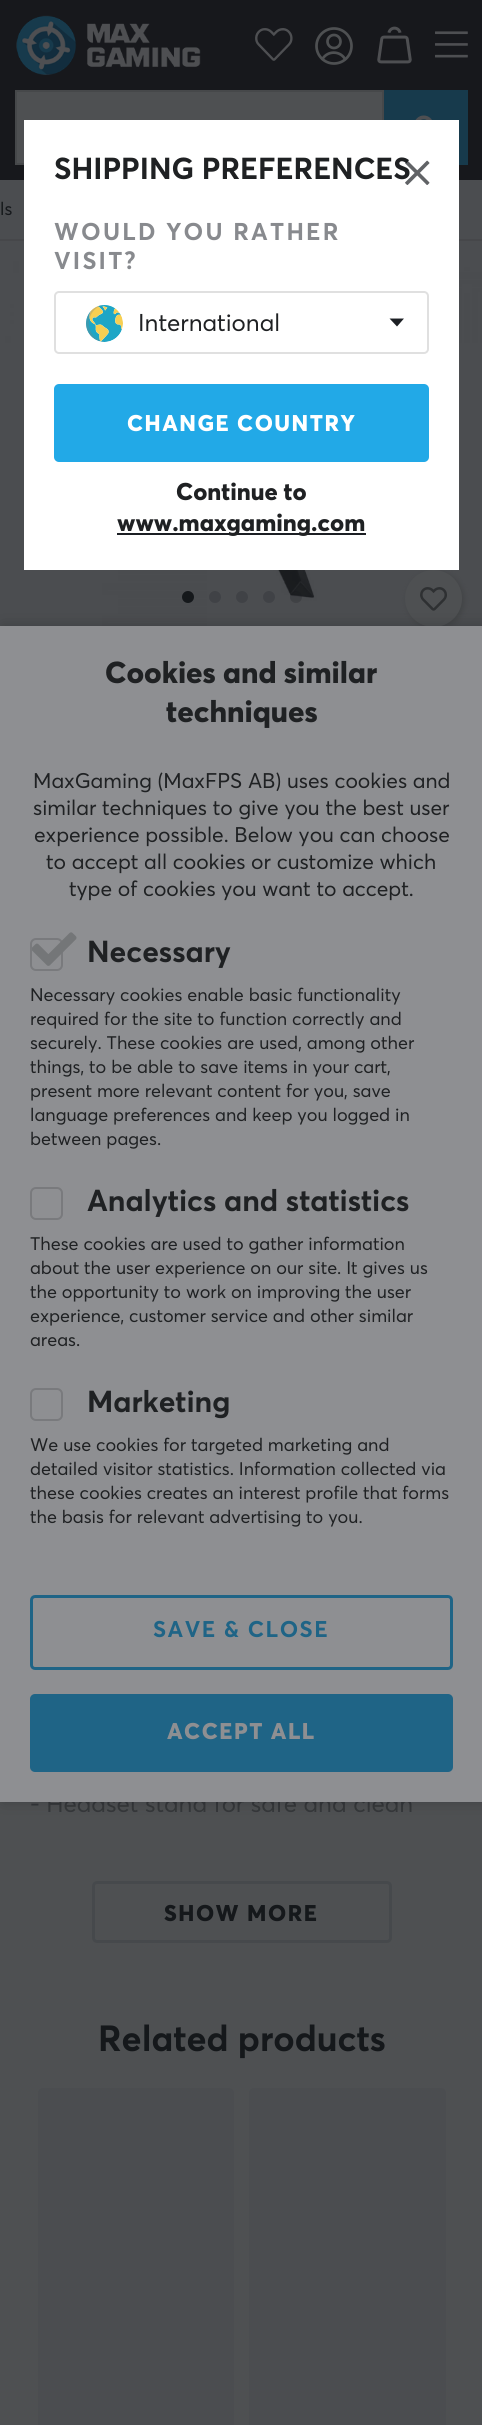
#include <cairo.h>
#include <math.h>
#include <stddef.h>


static void rgb(cairo_t *cr, int r, int g, int b)
{
	cairo_set_source_rgb(cr, r / 255.0, g / 255.0, b / 255.0);
}

static void face(cairo_t *cr, const char *family, double size, int italic, int bold)
{
	cairo_select_font_face(cr, family, italic ? CAIRO_FONT_SLANT_ITALIC : CAIRO_FONT_SLANT_NORMAL,
		bold ? CAIRO_FONT_WEIGHT_BOLD : CAIRO_FONT_WEIGHT_NORMAL);
	cairo_set_font_size(cr, size);
}

static void label(cairo_t *cr, double x, double y, const char *s)
{
	cairo_move_to(cr, x, y);
	cairo_show_text(cr, s);
}

static void tracked(cairo_t *cr, double x, double y, const char *s, double letter, double word)
{
	cairo_move_to(cr, x, y);
	while (*s) {
		char ch[5] = {0};
		int n = 0;
		do ch[n++] = *s++; while ((*s & 0xC0) == 0x80);
		cairo_show_text(cr, ch);
		cairo_rel_move_to(cr, letter + word * (*ch == ' '), 0);
	}
}

static void rect(cairo_t *cr, double x, double y, double w, double h)
{
	cairo_rectangle(cr, x, y, w, h);
	cairo_fill(cr);
}

static void rrect(cairo_t *cr, double x, double y, double w, double h, double r)
{
	cairo_new_sub_path(cr);
	cairo_arc(cr, x + w - r, y + h - r, r, 0, M_PI / 2);
	cairo_arc(cr, x + r, y + h - r, r, M_PI / 2, M_PI);
	cairo_arc(cr, x + r, y + r, r, M_PI, 1.5 * M_PI);
	cairo_arc(cr, x + w - r, y + r, r, 1.5 * M_PI, 2 * M_PI);
	cairo_close_path(cr);
}

static void soft_shadow(cairo_t *cr, double x, double y, double w, double h, double r, double blur, double alpha)
{
	cairo_push_group_with_content(cr, CAIRO_CONTENT_ALPHA);
	cairo_set_operator(cr, CAIRO_OPERATOR_SOURCE);
	for (int i = 15; i >= -15 && fmin(w, h) + blur * i / 3 > 0; i -= 2) {
		double e = blur * i / 6;
		cairo_set_source_rgba(cr, 0, 0, 0, alpha * erfc((i - 1) / 8.5) / 2);
		rrect(cr, x - e, y - e, w + 2 * e, h + 2 * e, fmax(0, fmin(r + e + blur * .6, fmin(w, h) / 2 + e)));
		cairo_fill(cr);
	}
	cairo_pattern_t *soft = cairo_pop_group(cr);
	cairo_mask(cr, soft);
	cairo_pattern_destroy(soft);
}

static void image(cairo_t *cr, const char *path, double x, double y, double w, double h)
{
	cairo_surface_t *image = cairo_image_surface_create_from_png(path);
	cairo_save(cr);
	cairo_set_source_surface(cr, image, x, y);
	cairo_rectangle(cr, x, y, w, h);
	cairo_fill(cr);
	cairo_restore(cr);
	cairo_surface_destroy(image);
}

static void draw(cairo_t *cr) {
	cairo_pattern_t *gradient;
	rgb(cr, 78, 80, 82);
	cairo_paint(cr);
	rgb(cr, 23, 24, 28);
	rect(cr, 0, 0, 482, 180);
	image(cr, "image0.png", 16, 15, 185, 60);
	image(cr, "image1.png", 255, 28, 38, 33);
	cairo_arc(cr, 334, 41.5, 6.5, 0, 2 * M_PI);
	rgb(cr, 78, 80, 82);
	cairo_set_line_width(cr, 2.7);
	cairo_stroke(cr);
	cairo_new_path(cr);
	cairo_move_to(cr, 322.5, 59);
	cairo_curve_to(cr, 327.5, 50.5, 340, 50.5, 345, 59);
	cairo_set_line_cap(cr, CAIRO_LINE_CAP_ROUND);
	cairo_set_line_join(cr, CAIRO_LINE_JOIN_ROUND);
	cairo_stroke(cr);
	cairo_arc(cr, 334, 46, 17.5, 0, 2 * M_PI);
	cairo_set_line_cap(cr, CAIRO_LINE_CAP_BUTT);
	cairo_set_line_join(cr, CAIRO_LINE_JOIN_MITER);
	cairo_stroke(cr);
	image(cr, "image2.png", 377, 26, 35, 38);
	image(cr, "image3.png", 435, 31, 33, 27);
	cairo_rectangle(cr, 16, 91, 367, 73);
	cairo_fill_preserve(cr);
	rgb(cr, 70, 72, 74);
	cairo_set_line_width(cr, 2);
	cairo_stroke(cr);
	rgb(cr, 23, 58, 76);
	rect(cr, 384, 90, 84, 75);
	image(cr, "image4.png", 415, 115, 17, 5);
	rgb(cr, 75, 77, 80);
	rect(cr, 0, 180, 482, 59);
	rgb(cr, 70, 71, 74);
	rect(cr, 0, 239, 482, 2);
	image(cr, "image7.png", 0, 241, 482, 385);
	rgb(cr, 65, 67, 69);
	soft_shadow(cr, 407, 572, 57, 57, 28.5, 3, 1);
	rgb(cr, 255, 255, 255);
	rect(cr, 24, 120, 435, 450);
	face(cr, "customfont", 30, 0, 0);
	rgb(cr, 31, 33, 35);
	label(cr, 54, 179, "SHIPPING PREFERENCES");
	image(cr, "image5.png", 405, 160, 25, 25);
	face(cr, "customfont", 24, 0, 0);
	rgb(cr, 136, 138, 142);
	tracked(cr, 54, 240, "WOULD YOU RATHER", 2.25, 0);
	tracked(cr, 54, 269, "VISIT?", 2.25, 0);
	rgb(cr, 28, 31, 36);
	cairo_new_path(cr);
	cairo_move_to(cr, 404, 318.5);
	cairo_line_to(cr, 389.5, 318.5);
	cairo_line_to(cr, 397, 326.5);
	cairo_close_path(cr);
	cairo_fill(cr);
	rrect(cr, 55, 292, 373, 61, 4);
	rgb(cr, 224, 224, 224);
	cairo_stroke(cr);
	image(cr, "image6.png", 86, 305, 37, 37);
	face(cr, "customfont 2", 24, 0, 0);
	rgb(cr, 31, 33, 35);
	label(cr, 138, 331, "International");
	rgb(cr, 34, 169, 231);
	rrect(cr, 54, 384, 375, 78, 5);
	cairo_fill(cr);
	face(cr, "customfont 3", 22.5, 0, 0);
	rgb(cr, 255, 255, 255);
	tracked(cr, 127, 431, "CHANGE COUNTRY", 1.5, 0);
	face(cr, "customfont 3", 24, 0, 0);
	rgb(cr, 31, 33, 35);
	label(cr, 176, 500, "Continue to");
	rgb(cr, 28, 31, 36);
	rect(cr, 117, 533, 249, 2);
	rgb(cr, 31, 33, 35);
	label(cr, 117, 531, "www.maxgaming.com");
	face(cr, "customfont 2", 18, 0, 0);
	rgb(cr, 21, 24, 27);
	label(cr, 0, 215, "ls");
	rgb(cr, 78, 80, 82);
	cairo_new_path(cr);
	cairo_arc(cr, 433.5, 598.5, 28.5, 0, 2 * M_PI);
	cairo_fill(cr);
	image(cr, "image8.png", 420, 587, 27, 24);
	rgb(cr, 21, 24, 27);
	cairo_arc(cr, 188, 597, 6, 0, 2 * M_PI);
	cairo_fill(cr);
	rgb(cr, 64, 66, 70);
	cairo_arc(cr, 215, 597, 6, 0, 2 * M_PI);
	cairo_fill(cr);
	cairo_arc(cr, 242, 597, 6, 0, 2 * M_PI);
	cairo_fill(cr);
	cairo_arc(cr, 269, 597, 6, 0, 2 * M_PI);
	cairo_fill(cr);
	cairo_set_source_rgba(cr, 0.082, 0.094, 0.106, 0.2);
	cairo_arc(cr, 296, 597, 6, 0, 2 * M_PI);
	cairo_fill(cr);
	face(cr, "customfont 2", 24, 0, 0);
	rgb(cr, 21, 24, 27);
	label(cr, 30, 1812, "- Headset stand for safe and clean");
	gradient = cairo_pattern_create_linear(242, 1701, 242, 1896);
	cairo_pattern_add_color_stop_rgba(gradient, 0, 0.306, 0.314, 0.322, 0);
	cairo_pattern_add_color_stop_rgba(gradient, 1, 0.306, 0.314, 0.322, 1);
	cairo_set_source(cr, gradient);
	cairo_pattern_destroy(gradient);
	rect(cr, 31, 1802, 381, 11);
	rrect(cr, 93.5, 1882.5, 297, 59, 3.5);
	rgb(cr, 70, 73, 76);
	cairo_set_line_width(cr, 3);
	cairo_stroke(cr);
	face(cr, "customfont 3", 22.5, 0, 0);
	rgb(cr, 21, 24, 27);
	tracked(cr, 164, 1921, "SHOW MORE", 1.5, 0);
	face(cr, "customfont", 36, 0, 0);
	label(cr, 98, 2051, "Related products");
	rgb(cr, 75, 77, 80);
	rrect(cr, 38, 2088, 196, 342, 5);
	cairo_fill(cr);
	rrect(cr, 249, 2088, 197, 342, 5);
	cairo_fill(cr);
	rgb(cr, 27, 28, 31);
	soft_shadow(cr, 3, 626, 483, 1176, 0, 7, 0.3);
	rgb(cr, 142, 143, 146);
	rect(cr, 0, 626, 482, 1176);
	face(cr, "customfont 3", 30, 0, 0);
	rgb(cr, 31, 33, 35);
	label(cr, 105, 683, "Cookies and similar");
	label(cr, 166, 722, "techniques");
	face(cr, "customfont 2", 21, 0, 0);
	label(cr, 33, 788, "MaxGaming (MaxFPS AB) uses cookies and");
	label(cr, 33, 815, "similar techniques to give you the best user");
	label(cr, 34, 842, "experience possible. Below you can choose");
	label(cr, 46, 869, "to accept all cookies or customize which");
	label(cr, 69, 896, "type of cookies you want to accept.");
	rrect(cr, 31, 939, 31, 31, 5);
	rgb(cr, 121, 122, 125);
	cairo_set_line_width(cr, 2);
	cairo_stroke(cr);
	image(cr, "image9.png", 32, 932, 45, 34);
	face(cr, "customfont", 30, 0, 0);
	rgb(cr, 31, 33, 35);
	label(cr, 87, 962, "Necessary");
	face(cr, "customfont 2", 18, 0, 0);
	label(cr, 30, 1001, "Necessary cookies enable basic functionality");
	label(cr, 30, 1025, "required for the site to function correctly and");
	label(cr, 30, 1049, "securely. These cookies are used, among other");
	label(cr, 30, 1073, "things, to be able to save items in your cart,");
	label(cr, 30, 1097, "present more relevant content for you, save");
	label(cr, 30, 1121, "language preferences and keep you logged in");
	label(cr, 30, 1145, "between pages.");
	rrect(cr, 31, 1188, 31, 31, 5);
	rgb(cr, 121, 122, 125);
	cairo_stroke(cr);
	face(cr, "customfont", 30, 0, 0);
	rgb(cr, 31, 33, 35);
	label(cr, 87, 1211, "Analytics and statistics");
	face(cr, "customfont 2", 18, 0, 0);
	label(cr, 30, 1250, "These cookies are used to gather information");
	label(cr, 30, 1274, "about the user experience on our site. It gives us");
	label(cr, 30, 1298, "the opportunity to work on improving the user");
	label(cr, 30, 1322, "experience, customer service and other similar");
	label(cr, 30, 1346, "areas.");
	rrect(cr, 31, 1389, 31, 31, 5);
	rgb(cr, 121, 122, 125);
	cairo_stroke(cr);
	face(cr, "customfont", 30, 0, 0);
	rgb(cr, 31, 33, 35);
	label(cr, 87, 1412, "Marketing");
	face(cr, "customfont 2", 18, 0, 0);
	label(cr, 30, 1451, "We use cookies for targeted marketing and");
	label(cr, 30, 1475, "detailed visitor statistics. Information collected via");
	label(cr, 30, 1499, "these cookies creates an interest profile that forms");
	label(cr, 30, 1523, "the basis for relevant advertising to you.");
	rrect(cr, 31.5, 1596.5, 420, 72, 3.5);
	rgb(cr, 31, 100, 134);
	cairo_set_line_width(cr, 3);
	cairo_stroke(cr);
	face(cr, "customfont", 22.5, 0, 0);
	tracked(cr, 153, 1637, "SAVE & CLOSE", 1.5, 0);
	rrect(cr, 30, 1694, 423, 78, 5);
	cairo_fill(cr);
	face(cr, "customfont 3", 22.5, 0, 0);
	rgb(cr, 142, 143, 146);
	tracked(cr, 167, 1739, "ACCEPT ALL", 1.5, 0);
}

int main(void) {
	cairo_surface_t *surface = cairo_image_surface_create(CAIRO_FORMAT_RGB24, 482, 2425);
	cairo_t *cr = cairo_create(surface);
	cairo_font_options_t *options = cairo_font_options_create();
	cairo_font_options_set_hint_metrics(options, CAIRO_HINT_METRICS_OFF);
	cairo_font_options_set_hint_style(options, CAIRO_HINT_STYLE_NONE);
	cairo_set_font_options(cr, options);
	cairo_set_miter_limit(cr, 4);
	draw(cr);
	cairo_surface_write_to_png(surface, "render.png");
	cairo_font_options_destroy(options);
	cairo_destroy(cr);
	cairo_surface_destroy(surface);
	return 0;
}
